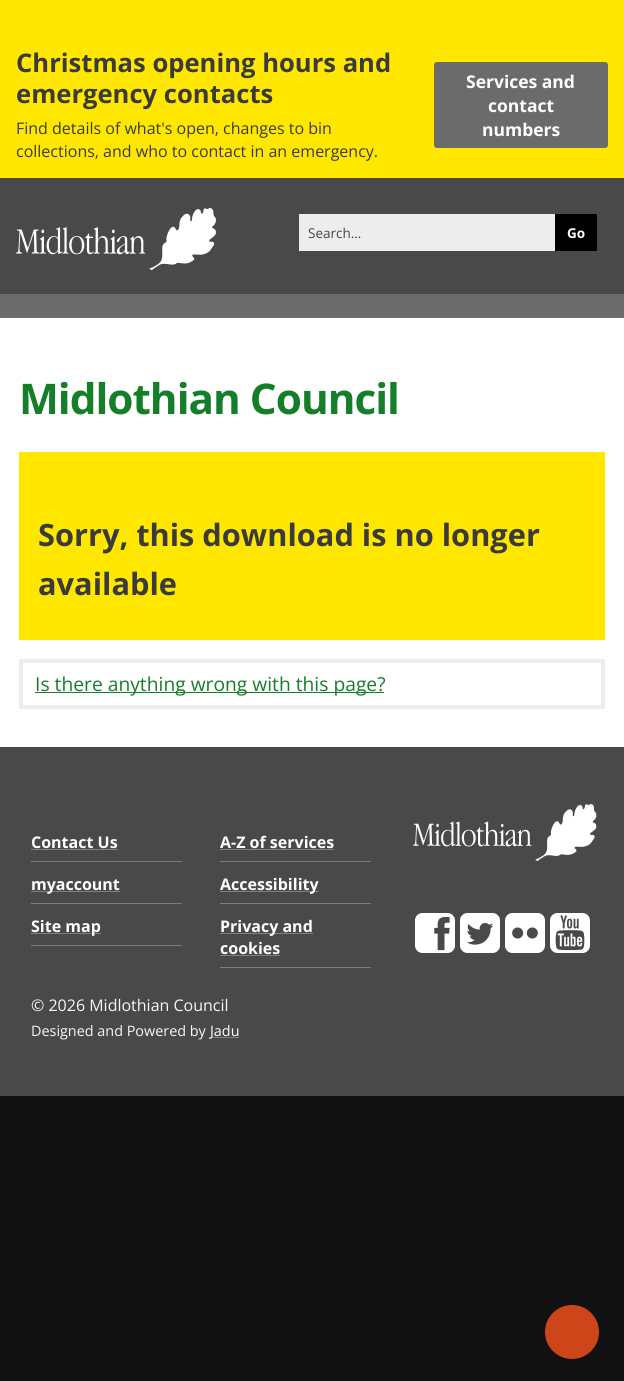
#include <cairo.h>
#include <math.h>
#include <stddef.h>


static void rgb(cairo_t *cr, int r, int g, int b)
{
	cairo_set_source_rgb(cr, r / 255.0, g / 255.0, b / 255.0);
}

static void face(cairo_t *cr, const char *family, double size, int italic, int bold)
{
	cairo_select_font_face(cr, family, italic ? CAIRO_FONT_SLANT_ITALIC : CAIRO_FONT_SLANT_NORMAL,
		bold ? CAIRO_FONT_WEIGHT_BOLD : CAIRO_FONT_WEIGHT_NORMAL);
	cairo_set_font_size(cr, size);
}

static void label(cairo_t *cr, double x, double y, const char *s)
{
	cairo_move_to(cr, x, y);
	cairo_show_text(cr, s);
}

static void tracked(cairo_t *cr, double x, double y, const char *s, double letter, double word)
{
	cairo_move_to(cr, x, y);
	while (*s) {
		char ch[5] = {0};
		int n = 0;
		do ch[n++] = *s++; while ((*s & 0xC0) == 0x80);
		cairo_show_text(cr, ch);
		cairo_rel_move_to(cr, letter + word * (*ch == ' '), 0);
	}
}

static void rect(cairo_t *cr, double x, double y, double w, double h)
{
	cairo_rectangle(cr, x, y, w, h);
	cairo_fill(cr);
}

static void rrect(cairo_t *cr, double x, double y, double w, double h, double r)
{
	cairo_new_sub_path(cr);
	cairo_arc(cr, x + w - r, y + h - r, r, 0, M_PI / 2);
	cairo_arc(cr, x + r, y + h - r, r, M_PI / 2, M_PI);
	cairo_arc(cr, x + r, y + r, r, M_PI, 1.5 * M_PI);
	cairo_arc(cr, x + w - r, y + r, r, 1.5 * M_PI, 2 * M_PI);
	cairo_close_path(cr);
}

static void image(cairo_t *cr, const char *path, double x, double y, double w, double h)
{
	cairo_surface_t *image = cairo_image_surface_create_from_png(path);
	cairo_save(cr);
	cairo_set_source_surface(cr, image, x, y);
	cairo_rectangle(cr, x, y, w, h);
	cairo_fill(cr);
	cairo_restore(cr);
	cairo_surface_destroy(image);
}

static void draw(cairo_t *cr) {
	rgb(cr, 17, 17, 17);
	cairo_paint(cr);
	rgb(cr, 255, 231, 0);
	rect(cr, 0, 0, 624, 178);
	face(cr, "Open Sans", 25.6, 0, 1);
	rgb(cr, 58, 58, 58);
	label(cr, 16, 72, "Christmas opening hours and");
	label(cr, 16, 103, "emergency contacts");
	rgb(cr, 108, 107, 107);
	rrect(cr, 435, 63, 172, 84, 2);
	cairo_fill_preserve(cr);
	cairo_stroke(cr);
	face(cr, "Open Sans", 17.5, 0, 1);
	rgb(cr, 255, 255, 255);
	label(cr, 466, 88, "Services and");
	label(cr, 488, 112, "contact");
	label(cr, 482, 136, "numbers");
	face(cr, "Open Sans", 16, 0, 0);
	rgb(cr, 58, 58, 58);
	label(cr, 16, 134, "Find details of what's open, changes to bin");
	label(cr, 16, 157, "collections, and who to contact in an emergency.");
	rgb(cr, 73, 73, 73);
	rect(cr, 0, 178, 624, 116);
	image(cr, "image0.png", 16, 208, 200, 62);
	rgb(cr, 237, 237, 237);
	rect(cr, 299, 214, 256, 37);
	face(cr, "Open Sans", 13.5, 0, 0);
	rgb(cr, 71, 71, 71);
	label(cr, 308, 238, "Search…");
	rgb(cr, 0, 0, 0);
	rect(cr, 555, 214, 42, 37);
	face(cr, "Open Sans", 13.5, 0, 1);
	rgb(cr, 255, 255, 255);
	label(cr, 567, 238, "Go");
	rgb(cr, 108, 107, 107);
	rect(cr, 0, 294, 624, 24);
	rgb(cr, 255, 255, 255);
	rect(cr, 0, 318, 624, 429);
	face(cr, "Open Sans", 42.25, 0, 1);
	rgb(cr, 21, 126, 40);
	tracked(cr, 19, 414, "Midlothian Council", -1, 0);
	rgb(cr, 255, 231, 0);
	rect(cr, 19, 452, 586, 188);
	face(cr, "Open Sans", 30.75, 0, 1);
	rgb(cr, 58, 58, 58);
	label(cr, 38, 546, "Sorry, this download is no longer");
	label(cr, 38, 595, "available");
	cairo_rectangle(cr, 21, 661, 582, 46);
	rgb(cr, 236, 236, 236);
	cairo_set_line_width(cr, 4);
	cairo_stroke(cr);
	rgb(cr, 21, 126, 40);
	rect(cr, 35, 692, 349, 1);
	face(cr, "Open Sans", 19.25, 0, 0);
	label(cr, 35, 691, "Is there anything wrong with this page?");
	rgb(cr, 73, 73, 73);
	rect(cr, 0, 747, 624, 349);
	rgb(cr, 124, 124, 124);
	rect(cr, 31, 861, 151, 1);
	face(cr, "Open Sans", 16, 0, 1);
	rgb(cr, 255, 255, 255);
	label(cr, 31, 848, "Contact Us");
	rgb(cr, 128, 128, 128);
	rect(cr, 31, 849, 87, 1);
	rgb(cr, 124, 124, 124);
	rect(cr, 31, 903, 151, 1);
	rgb(cr, 128, 128, 128);
	rect(cr, 31, 891, 89, 1);
	rgb(cr, 255, 255, 255);
	label(cr, 31, 890, "myaccount");
	rgb(cr, 124, 124, 124);
	rect(cr, 31, 945, 151, 1);
	rgb(cr, 128, 128, 128);
	rect(cr, 31, 933, 70, 1);
	rgb(cr, 255, 255, 255);
	label(cr, 31, 932, "Site map");
	rgb(cr, 124, 124, 124);
	rect(cr, 220, 861, 151, 1);
	rgb(cr, 255, 255, 255);
	label(cr, 220, 848, "A-Z of services");
	rgb(cr, 128, 128, 128);
	rect(cr, 220, 849, 114, 1);
	rgb(cr, 124, 124, 124);
	rect(cr, 220, 903, 151, 1);
	rgb(cr, 128, 128, 128);
	rect(cr, 220, 891, 99, 1);
	rgb(cr, 255, 255, 255);
	label(cr, 220, 890, "Accessibility");
	rgb(cr, 124, 124, 124);
	rect(cr, 220, 967, 151, 1);
	rgb(cr, 128, 128, 128);
	rect(cr, 220, 933, 93, 1);
	rgb(cr, 255, 255, 255);
	label(cr, 220, 932, "Privacy and");
	label(cr, 220, 954, "cookies");
	rgb(cr, 128, 128, 128);
	rect(cr, 220, 955, 60, 1);
	image(cr, "image1.png", 413, 804, 184, 57);
	face(cr, "Open Sans", 16, 0, 0);
	rgb(cr, 246, 246, 246);
	label(cr, 31, 1011, "© 2026 Midlothian Council");
	face(cr, "Open Sans", 14.4, 0, 0);
	label(cr, 31, 1036, "Designed and Powered by");
	rgb(cr, 128, 128, 128);
	rect(cr, 210, 1037, 29, 1);
	rgb(cr, 255, 255, 255);
	label(cr, 210, 1036, "Jadu");
	image(cr, "image2.png", 415, 913, 40, 40);
	image(cr, "image3.png", 460, 913, 40, 40);
	image(cr, "image4.png", 505, 913, 40, 40);
	image(cr, "image5.png", 550, 913, 40, 40);
	rgb(cr, 205, 69, 24);
	cairo_arc(cr, 572, 1332, 27, 0, 2 * M_PI);
	cairo_fill(cr);
}

int main(void) {
	cairo_surface_t *surface = cairo_image_surface_create(CAIRO_FORMAT_RGB24, 624, 1381);
	cairo_t *cr = cairo_create(surface);
	cairo_font_options_t *options = cairo_font_options_create();
	cairo_font_options_set_hint_metrics(options, CAIRO_HINT_METRICS_OFF);
	cairo_font_options_set_hint_style(options, CAIRO_HINT_STYLE_NONE);
	cairo_set_font_options(cr, options);
	cairo_set_miter_limit(cr, 4);
	draw(cr);
	cairo_surface_write_to_png(surface, "render.png");
	cairo_font_options_destroy(options);
	cairo_destroy(cr);
	cairo_surface_destroy(surface);
	return 0;
}
